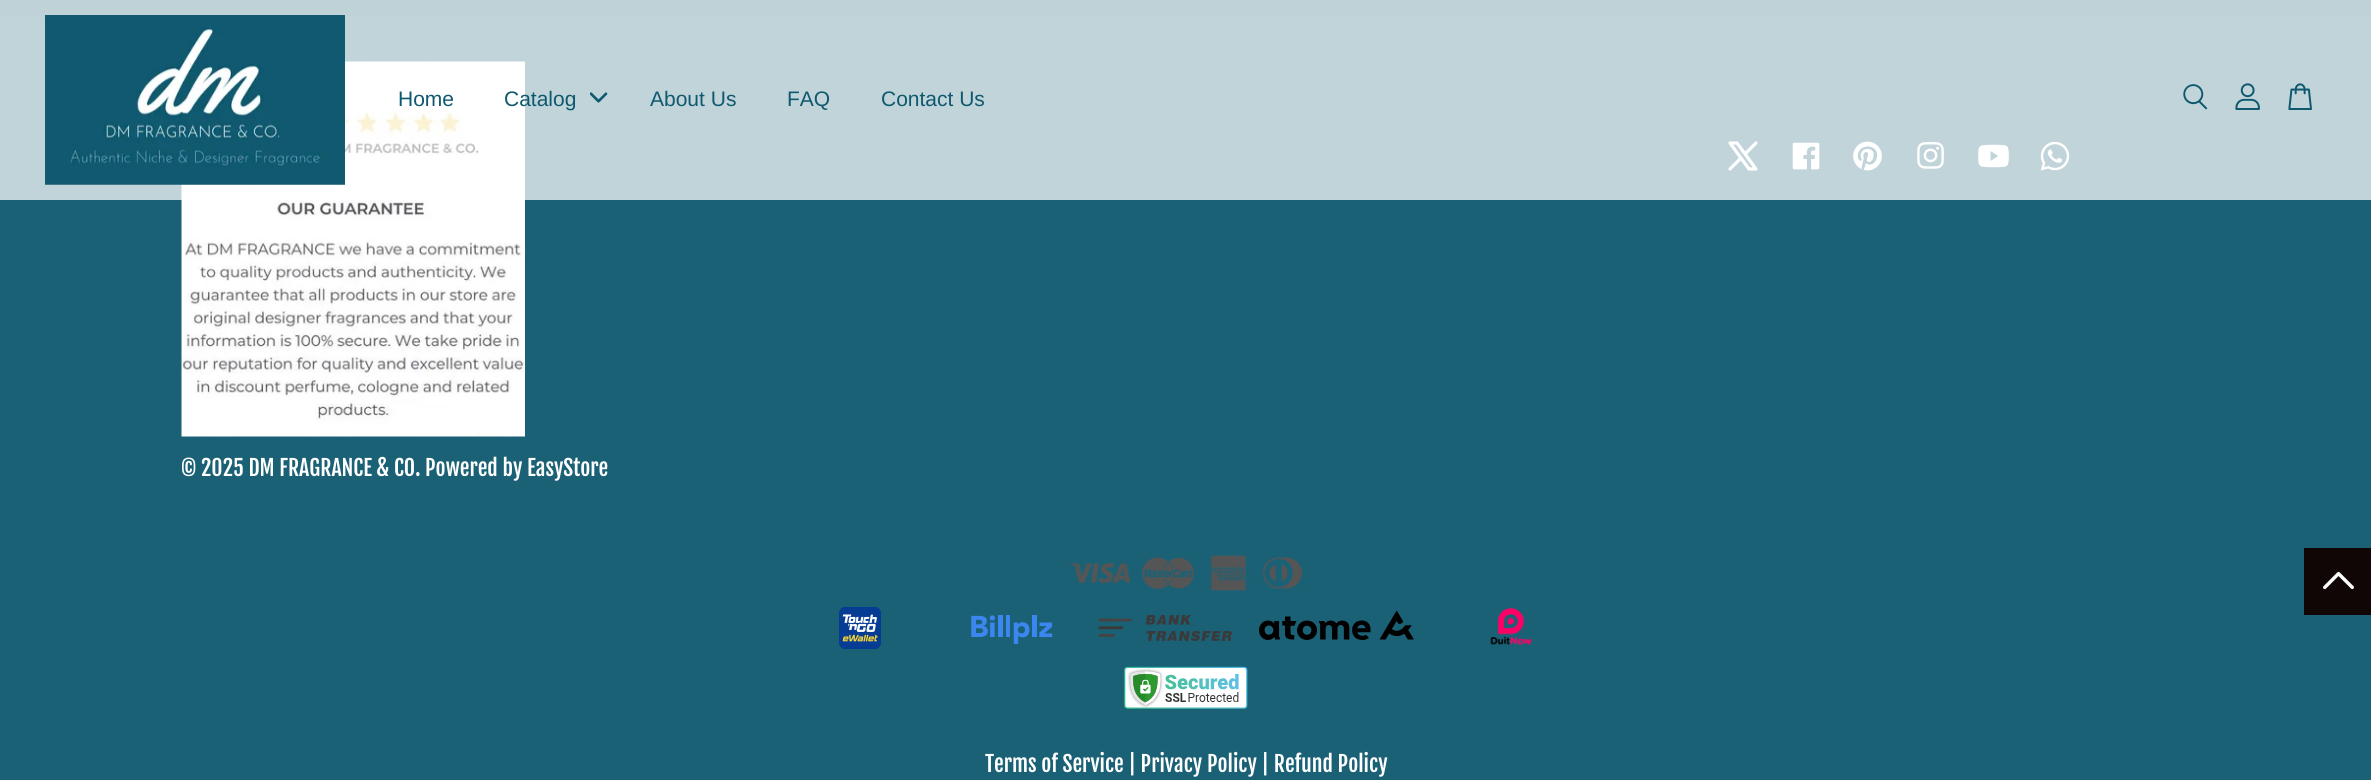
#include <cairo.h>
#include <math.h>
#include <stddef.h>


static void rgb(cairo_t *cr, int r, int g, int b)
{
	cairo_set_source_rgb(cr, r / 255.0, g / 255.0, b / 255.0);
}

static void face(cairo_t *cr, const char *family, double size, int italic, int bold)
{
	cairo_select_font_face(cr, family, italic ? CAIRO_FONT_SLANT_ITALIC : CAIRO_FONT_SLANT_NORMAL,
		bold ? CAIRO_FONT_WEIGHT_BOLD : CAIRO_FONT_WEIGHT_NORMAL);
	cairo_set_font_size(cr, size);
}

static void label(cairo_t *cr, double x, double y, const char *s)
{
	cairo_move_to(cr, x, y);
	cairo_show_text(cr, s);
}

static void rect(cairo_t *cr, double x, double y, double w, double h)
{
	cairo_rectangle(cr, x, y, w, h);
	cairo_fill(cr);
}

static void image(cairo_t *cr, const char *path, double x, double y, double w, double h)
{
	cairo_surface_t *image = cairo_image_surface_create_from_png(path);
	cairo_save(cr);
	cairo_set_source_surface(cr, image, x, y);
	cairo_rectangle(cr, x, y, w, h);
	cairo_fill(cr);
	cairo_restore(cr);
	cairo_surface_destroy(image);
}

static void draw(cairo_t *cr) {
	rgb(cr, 27, 97, 118);
	cairo_paint(cr);
	rgb(cr, 15, 89, 111);
	rect(cr, 0, 0, 2371, 17);
	cairo_new_path(cr);
	cairo_move_to(cr, 1730, 143);
	cairo_line_to(cr, 1749, 169);
	cairo_line_to(cr, 1756, 169);
	cairo_line_to(cr, 1737, 143);
	cairo_close_path(cr);
	cairo_move_to(cr, 1730, 169);
	cairo_line_to(cr, 1741, 158);
	cairo_move_to(cr, 1745, 154);
	cairo_line_to(cr, 1756, 143);
	rgb(cr, 255, 255, 255);
	cairo_set_line_width(cr, 3.2);
	cairo_set_line_cap(cr, CAIRO_LINE_CAP_ROUND);
	cairo_set_line_join(cr, CAIRO_LINE_JOIN_ROUND);
	cairo_stroke(cr);
	image(cr, "image5.png", 1792, 142, 28, 28);
	image(cr, "image6.png", 1853, 141, 29, 30);
	image(cr, "image7.png", 1917, 142, 27, 27);
	image(cr, "image8.png", 1978, 144, 31, 24);
	image(cr, "image9.png", 2040, 141, 30, 30);
	image(cr, "image10.png", 181, 61, 344, 376);
	cairo_set_source_rgba(cr, 1, 1, 1, 0.73);
	rect(cr, 0, 0, 2371, 200);
	image(cr, "image0.png", 45, 15, 300, 170);
	face(cr, "Liberation Sans", 21, 0, 0);
	rgb(cr, 15, 89, 111);
	label(cr, 398, 106, "Home");
	label(cr, 504, 106, "Catalog");
	image(cr, "image1.png", 590, 92, 18, 11);
	label(cr, 650, 106, "About Us");
	label(cr, 787, 106, "FAQ");
	label(cr, 881, 106, "Contact Us");
	image(cr, "image2.png", 2183, 84, 25, 26);
	image(cr, "image3.png", 2235, 83, 25, 27);
	image(cr, "image4.png", 2288, 83, 24, 27);
	face(cr, "Fjalla One", 21.7, 0, 0);
	rgb(cr, 255, 255, 255);
	label(cr, 181, 476, "© 2025 DM FRAGRANCE & CO. Powered by EasyStore");
	image(cr, "image11.png", 1069, 563, 62, 20);
	image(cr, "image12.png", 1142, 557, 52, 32);
	image(cr, "image13.png", 1211, 555, 35, 36);
	image(cr, "image14.png", 1263, 557, 39, 32);
	image(cr, "image15.png", 839, 607, 42, 42);
	image(cr, "image16.png", 971, 615, 82, 29);
	image(cr, "image17.png", 1098, 615, 134, 26);
	image(cr, "image18.png", 1259, 611, 155, 29);
	image(cr, "image19.png", 1490, 608, 42, 37);
	image(cr, "image20.png", 1123, 666, 125, 43);
	label(cr, 985, 772, "Terms of Service | Privacy Policy | Refund Policy");
	rgb(cr, 17, 6, 6);
	rect(cr, 2304, 548, 67, 67);
	image(cr, "image21.png", 2323, 571, 31, 19);
}

int main(void) {
	cairo_surface_t *surface = cairo_image_surface_create(CAIRO_FORMAT_RGB24, 2371, 780);
	cairo_t *cr = cairo_create(surface);
	cairo_font_options_t *options = cairo_font_options_create();
	cairo_font_options_set_hint_metrics(options, CAIRO_HINT_METRICS_OFF);
	cairo_font_options_set_hint_style(options, CAIRO_HINT_STYLE_NONE);
	cairo_set_font_options(cr, options);
	cairo_set_miter_limit(cr, 4);
	draw(cr);
	cairo_surface_write_to_png(surface, "render.png");
	cairo_font_options_destroy(options);
	cairo_destroy(cr);
	cairo_surface_destroy(surface);
	return 0;
}
